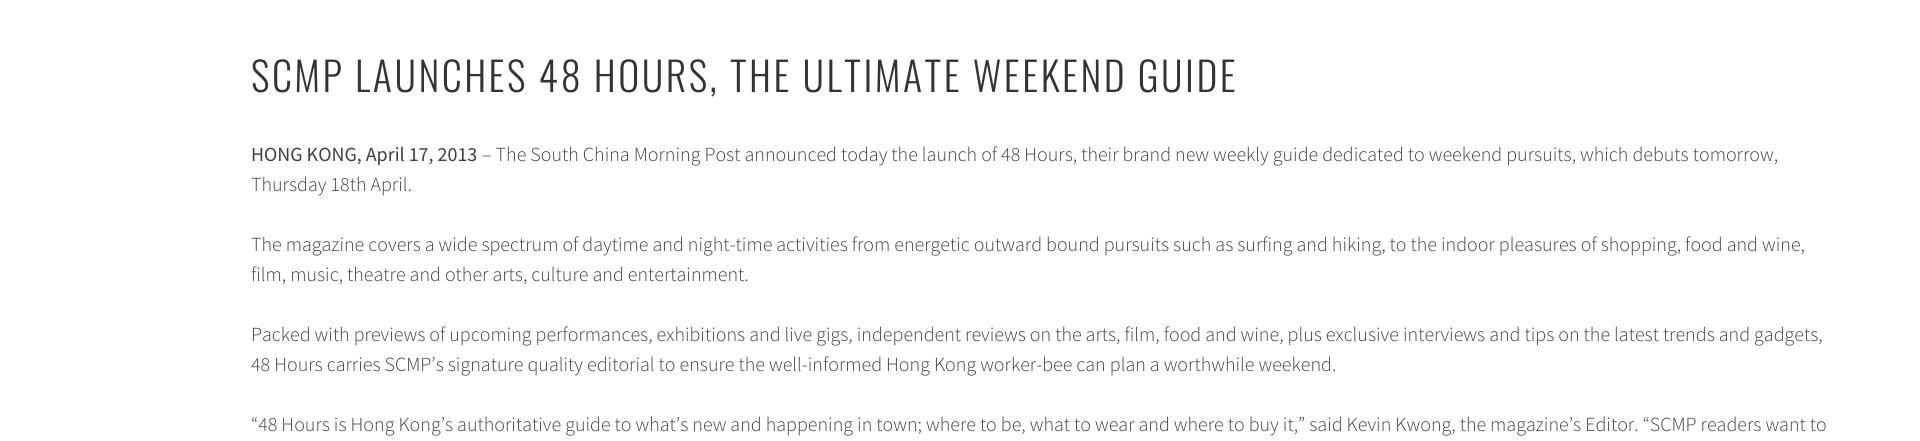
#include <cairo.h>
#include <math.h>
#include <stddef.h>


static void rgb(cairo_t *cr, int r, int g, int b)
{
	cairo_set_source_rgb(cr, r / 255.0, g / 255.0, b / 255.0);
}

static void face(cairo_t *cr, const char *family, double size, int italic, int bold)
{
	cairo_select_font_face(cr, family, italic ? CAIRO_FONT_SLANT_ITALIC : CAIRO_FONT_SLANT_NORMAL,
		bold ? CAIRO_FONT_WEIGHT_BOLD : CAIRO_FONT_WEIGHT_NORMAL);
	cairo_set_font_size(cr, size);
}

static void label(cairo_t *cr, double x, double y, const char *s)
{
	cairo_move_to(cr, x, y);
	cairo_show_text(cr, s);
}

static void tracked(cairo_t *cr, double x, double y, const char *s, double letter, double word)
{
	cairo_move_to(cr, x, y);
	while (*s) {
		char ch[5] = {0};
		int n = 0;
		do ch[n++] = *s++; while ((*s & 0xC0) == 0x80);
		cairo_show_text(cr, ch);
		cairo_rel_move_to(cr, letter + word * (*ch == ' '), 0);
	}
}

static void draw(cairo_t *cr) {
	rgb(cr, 255, 255, 255);
	cairo_paint(cr);
	face(cr, "Oswald Light", 40, 0, 0);
	rgb(cr, 51, 51, 51);
	tracked(cr, 251, 92, "SCMP LAUNCHES 48 HOURS, THE ULTIMATE WEEKEND GUIDE", 2.5, 0);
	face(cr, "Source Sans Pro", 20, 0, 0);
	rgb(cr, 64, 64, 64);
	label(cr, 251, 161, "HONG KONG, April 17, 2013");
	face(cr, "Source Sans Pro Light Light", 20, 0, 0);
	label(cr, 482, 161, "– The South China Morning Post announced today the launch of 48 Hours, their brand new weekly guide dedicated to weekend pursuits, which debuts tomorrow,");
	label(cr, 251, 191, "Thursday 18th April.");
	label(cr, 251, 251, "The magazine covers a wide spectrum of daytime and night-time activities from energetic outward bound pursuits such as surfing and hiking, to the indoor pleasures of shopping, food and wine,");
	label(cr, 251, 281, "film, music, theatre and other arts, culture and entertainment.");
	label(cr, 251, 341, "Packed with previews of upcoming performances, exhibitions and live gigs, independent reviews on the arts, film, food and wine, plus exclusive interviews and tips on the latest trends and gadgets,");
	label(cr, 251, 371, "48 Hours carries SCMP’s signature quality editorial to ensure the well-informed Hong Kong worker-bee can plan a worthwhile weekend.");
	label(cr, 251, 431, "“48 Hours is Hong Kong’s authoritative guide to what’s new and happening in town; where to be, what to wear and where to buy it,” said Kevin Kwong, the magazine’s Editor. “SCMP readers want to");
}

int main(void) {
	cairo_surface_t *surface = cairo_image_surface_create(CAIRO_FORMAT_RGB24, 1920, 441);
	cairo_t *cr = cairo_create(surface);
	cairo_font_options_t *options = cairo_font_options_create();
	cairo_font_options_set_hint_metrics(options, CAIRO_HINT_METRICS_OFF);
	cairo_font_options_set_hint_style(options, CAIRO_HINT_STYLE_NONE);
	cairo_set_font_options(cr, options);
	cairo_set_miter_limit(cr, 4);
	draw(cr);
	cairo_surface_write_to_png(surface, "render.png");
	cairo_font_options_destroy(options);
	cairo_destroy(cr);
	cairo_surface_destroy(surface);
	return 0;
}
